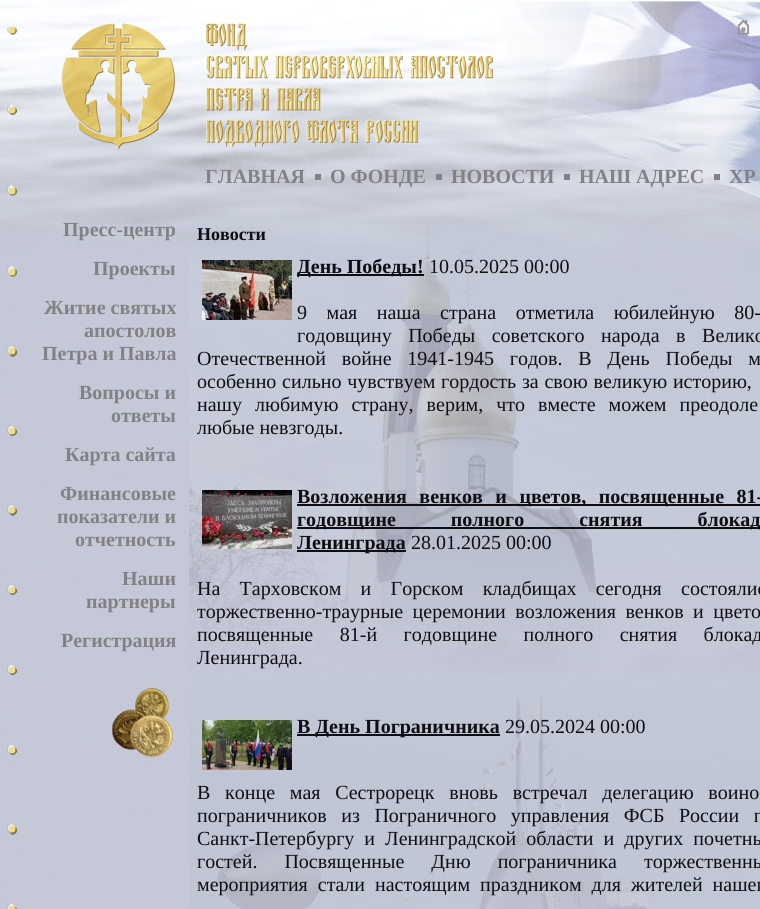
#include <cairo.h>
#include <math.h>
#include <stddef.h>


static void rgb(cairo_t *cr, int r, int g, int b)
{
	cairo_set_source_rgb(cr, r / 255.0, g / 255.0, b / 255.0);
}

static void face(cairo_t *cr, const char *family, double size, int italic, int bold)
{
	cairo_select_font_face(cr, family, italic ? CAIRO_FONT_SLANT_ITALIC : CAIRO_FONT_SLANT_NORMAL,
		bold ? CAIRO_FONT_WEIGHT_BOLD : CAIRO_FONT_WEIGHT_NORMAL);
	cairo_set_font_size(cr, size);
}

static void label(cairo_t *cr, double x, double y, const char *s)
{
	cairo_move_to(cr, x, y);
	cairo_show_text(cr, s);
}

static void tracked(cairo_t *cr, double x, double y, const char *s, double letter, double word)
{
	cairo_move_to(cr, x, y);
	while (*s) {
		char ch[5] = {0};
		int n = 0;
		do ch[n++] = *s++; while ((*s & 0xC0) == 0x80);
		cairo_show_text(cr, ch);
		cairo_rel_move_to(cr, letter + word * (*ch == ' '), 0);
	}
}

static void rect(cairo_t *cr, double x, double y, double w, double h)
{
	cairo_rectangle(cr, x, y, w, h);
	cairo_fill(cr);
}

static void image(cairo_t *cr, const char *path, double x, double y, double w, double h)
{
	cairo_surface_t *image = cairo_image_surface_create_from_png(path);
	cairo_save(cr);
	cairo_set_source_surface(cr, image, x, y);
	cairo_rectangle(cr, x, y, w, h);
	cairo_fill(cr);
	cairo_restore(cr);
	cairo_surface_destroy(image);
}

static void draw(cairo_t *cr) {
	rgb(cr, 255, 255, 255);
	cairo_paint(cr);
	image(cr, "image0.png", 0, 0, 760, 909);
	image(cr, "image1.png", 61, 23, 432, 127);
	image(cr, "image2.png", 737, 19, 12, 16);
	face(cr, "Liberation Serif", 20, 0, 1);
	rgb(cr, 129, 130, 133);
	label(cr, 205, 183, "ГЛАВНАЯ");
	rect(cr, 315, 174, 6, 6);
	label(cr, 330, 183, "О ФОНДЕ");
	rect(cr, 436, 174, 6, 6);
	label(cr, 451, 183, "НОВОСТИ");
	rect(cr, 564, 174, 6, 6);
	label(cr, 579, 183, "НАШ АДРЕС");
	rect(cr, 714, 174, 6, 6);
	label(cr, 729, 183, "ХР");
	label(cr, 63, 236, "Пресс-центр");
	label(cr, 93, 275, "Проекты");
	label(cr, 44, 314, "Житие святых");
	label(cr, 84, 337, "апостолов");
	label(cr, 42, 360, "Петра и Павла");
	label(cr, 79, 399, "Вопросы и");
	label(cr, 111, 422, "ответы");
	label(cr, 65, 461, "Карта сайта");
	label(cr, 60, 500, "Финансовые");
	label(cr, 57, 523, "показатели и");
	label(cr, 75, 546, "отчетность");
	label(cr, 122, 585, "Наши");
	label(cr, 86, 608, "партнеры");
	label(cr, 61, 647, "Регистрация");
	image(cr, "image3.png", 112, 688, 61, 69);
	face(cr, "Liberation Serif", 18, 0, 1);
	rgb(cr, 15, 14, 20);
	label(cr, 197, 240, "Новости");
	image(cr, "image4.png", 202, 260, 90, 60);
	rect(cr, 297, 274, 127, 2);
	face(cr, "Liberation Serif", 20, 0, 1);
	label(cr, 297, 273, "День Победы!");
	face(cr, "Liberation Serif", 20, 0, 0);
	label(cr, 429, 273, "10.05.2025 00:00");
	tracked(cr, 297, 319, "9 мая наша страна отметила юбилейную 80-", 0, 14.5);
	tracked(cr, 297, 342, "годовщину Победы советского народа в Велико", 0, 11.5);
	tracked(cr, 197, 365, "Отечественной войне 1941-1945 годов. В День Победы м", 0, 10.75);
	tracked(cr, 197, 388, "особенно сильно чувствуем гордость за свою великую историю,", 0, 0.75);
	tracked(cr, 197, 411, "нашу любимую страну, верим, что вместе можем преодоле", 0, 8);
	label(cr, 197, 434, "любые невзгоды.");
	image(cr, "image5.png", 202, 490, 90, 59);
	rect(cr, 297, 504, 463, 2);
	face(cr, "Liberation Serif", 20, 0, 1);
	tracked(cr, 297, 503, "Возложения венков и цветов, посвященные 81-", 0, 7.5);
	rect(cr, 297, 527, 463, 2);
	tracked(cr, 297, 526, "годовщине полного снятия блокад", 0, 50);
	rect(cr, 297, 550, 109, 2);
	label(cr, 297, 549, "Ленинграда");
	face(cr, "Liberation Serif", 20, 0, 0);
	label(cr, 411, 549, "28.01.2025 00:00");
	tracked(cr, 197, 595, "На Тарховском и Горском кладбищах сегодня состоялис", 0, 14.25);
	tracked(cr, 197, 618, "торжественно-траурные церемонии возложения венков и цвето", 0, 4.5);
	tracked(cr, 197, 641, "посвященные 81-й годовщине полного снятия блокад", 0, 21.5);
	label(cr, 197, 664, "Ленинграда.");
	image(cr, "image6.png", 202, 720, 90, 50);
	rect(cr, 297, 734, 203, 2);
	face(cr, "Liberation Serif", 20, 0, 1);
	label(cr, 297, 733, "В День Пограничника");
	face(cr, "Liberation Serif", 20, 0, 0);
	label(cr, 505, 733, "29.05.2024 00:00");
	tracked(cr, 197, 799, "В конце мая Сестрорецк вновь встречал делегацию воино", 0, 9.75);
	tracked(cr, 197, 822, "пограничников из Пограничного управления ФСБ России п", 0, 9.5);
	tracked(cr, 197, 845, "Санкт-Петербургу и Ленинградской области и других почетны", 0, 5);
	tracked(cr, 197, 868, "гостей. Посвященные Дню пограничника торжественны", 0, 22);
	tracked(cr, 197, 891, "мероприятия стали настоящим праздником для жителей нашег", 0, 5);
}

int main(void) {
	cairo_surface_t *surface = cairo_image_surface_create(CAIRO_FORMAT_RGB24, 760, 909);
	cairo_t *cr = cairo_create(surface);
	cairo_font_options_t *options = cairo_font_options_create();
	cairo_font_options_set_hint_metrics(options, CAIRO_HINT_METRICS_OFF);
	cairo_font_options_set_hint_style(options, CAIRO_HINT_STYLE_NONE);
	cairo_set_font_options(cr, options);
	cairo_set_miter_limit(cr, 4);
	draw(cr);
	cairo_surface_write_to_png(surface, "render.png");
	cairo_font_options_destroy(options);
	cairo_destroy(cr);
	cairo_surface_destroy(surface);
	return 0;
}
